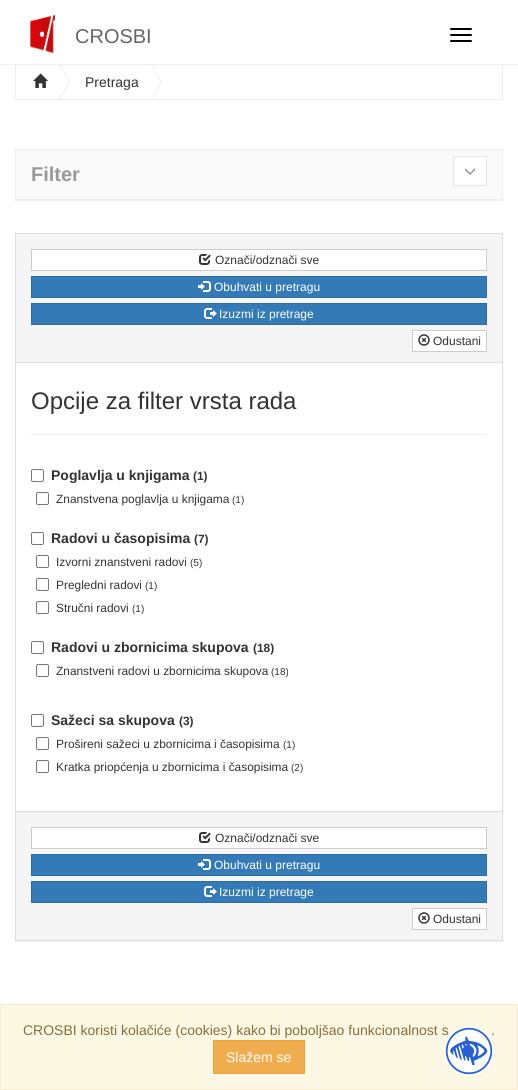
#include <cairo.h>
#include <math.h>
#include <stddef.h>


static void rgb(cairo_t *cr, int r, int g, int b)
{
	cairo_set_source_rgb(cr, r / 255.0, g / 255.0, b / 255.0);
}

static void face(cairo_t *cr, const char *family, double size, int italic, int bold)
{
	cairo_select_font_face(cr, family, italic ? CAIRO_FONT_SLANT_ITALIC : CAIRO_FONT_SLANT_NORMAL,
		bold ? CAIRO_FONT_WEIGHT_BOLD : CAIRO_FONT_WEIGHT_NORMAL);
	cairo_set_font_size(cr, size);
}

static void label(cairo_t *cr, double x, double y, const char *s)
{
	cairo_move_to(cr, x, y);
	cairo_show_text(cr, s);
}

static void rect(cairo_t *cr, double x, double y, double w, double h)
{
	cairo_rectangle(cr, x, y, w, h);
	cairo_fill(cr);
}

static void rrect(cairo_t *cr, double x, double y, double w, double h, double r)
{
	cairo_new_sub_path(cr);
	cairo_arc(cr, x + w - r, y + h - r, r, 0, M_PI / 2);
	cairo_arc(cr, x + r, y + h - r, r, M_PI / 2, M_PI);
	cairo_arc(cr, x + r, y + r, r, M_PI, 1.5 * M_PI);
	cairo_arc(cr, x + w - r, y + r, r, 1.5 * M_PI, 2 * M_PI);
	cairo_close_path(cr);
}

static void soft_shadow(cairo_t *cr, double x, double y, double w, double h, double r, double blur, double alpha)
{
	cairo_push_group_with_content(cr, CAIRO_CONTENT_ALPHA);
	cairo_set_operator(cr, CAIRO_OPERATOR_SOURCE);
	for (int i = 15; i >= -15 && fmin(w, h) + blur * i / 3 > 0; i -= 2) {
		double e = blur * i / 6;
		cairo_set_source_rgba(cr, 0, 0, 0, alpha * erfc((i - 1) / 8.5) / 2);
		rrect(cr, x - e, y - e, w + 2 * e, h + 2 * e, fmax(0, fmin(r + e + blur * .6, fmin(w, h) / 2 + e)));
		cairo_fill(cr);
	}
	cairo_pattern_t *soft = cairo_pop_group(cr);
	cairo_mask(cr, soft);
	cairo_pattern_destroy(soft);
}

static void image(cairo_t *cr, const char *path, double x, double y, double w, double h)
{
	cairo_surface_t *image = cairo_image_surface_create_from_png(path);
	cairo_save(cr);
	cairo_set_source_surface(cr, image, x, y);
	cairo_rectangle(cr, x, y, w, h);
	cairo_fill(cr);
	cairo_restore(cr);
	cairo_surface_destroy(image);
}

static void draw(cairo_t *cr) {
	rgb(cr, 255, 255, 255);
	cairo_paint(cr);
	rgb(cr, 238, 238, 238);
	rect(cr, 0, 64, 518, 1);
	image(cr, "image0.png", 30, 15, 25, 39);
	face(cr, "Liberation Sans", 20, 0, 0);
	rgb(cr, 102, 102, 102);
	label(cr, 75, 43, "CROSBI");
	rgb(cr, 0, 0, 0);
	rrect(cr, 450, 28, 22, 2, 1);
	cairo_fill(cr);
	rrect(cr, 450, 34, 22, 2, 1);
	cairo_fill(cr);
	rrect(cr, 450, 40, 22, 2, 1);
	cairo_fill(cr);
	rgb(cr, 238, 238, 238);
	rect(cr, 502, 65, 1, 35);
	rect(cr, 15, 99, 488, 1);
	rect(cr, 15, 65, 1, 35);
	rgb(cr, 204, 204, 204);
	cairo_new_path(cr);
	cairo_move_to(cr, 60, 65);
	cairo_line_to(cr, 60, 99);
	cairo_line_to(cr, 59, 98);
	cairo_line_to(cr, 59, 66);
	cairo_close_path(cr);
	cairo_fill(cr);
	cairo_new_path(cr);
	cairo_move_to(cr, 60, 99);
	cairo_line_to(cr, 60, 65);
	cairo_line_to(cr, 61, 66);
	cairo_line_to(cr, 61, 98);
	cairo_close_path(cr);
	cairo_fill(cr);
	rgb(cr, 238, 238, 238);
	cairo_new_path(cr);
	cairo_move_to(cr, 60, 99);
	cairo_line_to(cr, 60, 65);
	cairo_line_to(cr, 70, 82);
	cairo_close_path(cr);
	cairo_fill(cr);
	rgb(cr, 255, 255, 255);
	cairo_new_path(cr);
	cairo_move_to(cr, 59, 99);
	cairo_line_to(cr, 59, 65);
	cairo_line_to(cr, 69, 82);
	cairo_close_path(cr);
	cairo_fill(cr);
	image(cr, "image1.png", 33, 73, 15, 15);
	rgb(cr, 204, 204, 204);
	cairo_new_path(cr);
	cairo_move_to(cr, 152, 65);
	cairo_line_to(cr, 152, 99);
	cairo_line_to(cr, 151, 98);
	cairo_line_to(cr, 151, 66);
	cairo_close_path(cr);
	cairo_fill(cr);
	rgb(cr, 238, 238, 238);
	cairo_new_path(cr);
	cairo_move_to(cr, 152, 99);
	cairo_line_to(cr, 152, 65);
	cairo_line_to(cr, 162, 82);
	cairo_close_path(cr);
	cairo_fill(cr);
	rgb(cr, 255, 255, 255);
	cairo_new_path(cr);
	cairo_move_to(cr, 151, 99);
	cairo_line_to(cr, 151, 65);
	cairo_line_to(cr, 161, 82);
	cairo_close_path(cr);
	cairo_fill(cr);
	face(cr, "Liberation Sans", 14, 0, 0);
	rgb(cr, 51, 51, 51);
	label(cr, 85, 87, "Pretraga");
	cairo_rectangle(cr, 15.5, 149.5, 487, 51);
	rgb(cr, 238, 238, 238);
	cairo_set_line_width(cr, 1);
	cairo_stroke(cr);
	rgb(cr, 250, 250, 250);
	rect(cr, 16, 150, 486, 49);
	rgb(cr, 238, 238, 238);
	rect(cr, 16, 199, 486, 1);
	face(cr, "Liberation Sans", 20, 0, 1);
	rgb(cr, 153, 153, 153);
	label(cr, 31, 181, "Filter");
	rgb(cr, 255, 255, 255);
	cairo_rectangle(cr, 453.5, 156.5, 33, 29);
	cairo_fill_preserve(cr);
	rgb(cr, 230, 230, 230);
	cairo_stroke(cr);
	image(cr, "image2.png", 465, 168, 10, 7);
	cairo_save(cr);
	cairo_rectangle(cr, 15, 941, 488, 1);
	cairo_clip(cr);
	rgb(cr, 0, 0, 0);
	soft_shadow(cr, 15, 234, 488, 708, 0, 0.5, 0.05);
	cairo_restore(cr);
	cairo_rectangle(cr, 15.5, 233.5, 487, 707);
	rgb(cr, 221, 221, 221);
	cairo_stroke(cr);
	rgb(cr, 245, 245, 245);
	rect(cr, 16, 234, 486, 128);
	rgb(cr, 221, 221, 221);
	rect(cr, 16, 362, 486, 1);
	rgb(cr, 255, 255, 255);
	cairo_rectangle(cr, 31.5, 249.5, 455, 21);
	cairo_fill_preserve(cr);
	rgb(cr, 204, 204, 204);
	cairo_stroke(cr);
	image(cr, "image3.png", 199, 254, 12, 11);
	face(cr, "Liberation Sans", 12, 0, 0);
	rgb(cr, 51, 51, 51);
	label(cr, 215, 264, "Označi/odznači sve");
	rgb(cr, 51, 122, 183);
	cairo_rectangle(cr, 31.5, 276.5, 455, 21);
	cairo_fill_preserve(cr);
	rgb(cr, 46, 109, 164);
	cairo_stroke(cr);
	image(cr, "image4.png", 198, 281, 13, 11);
	rgb(cr, 255, 255, 255);
	label(cr, 214, 291, "Obuhvati u pretragu");
	rgb(cr, 51, 122, 183);
	cairo_rectangle(cr, 31.5, 303.5, 455, 21);
	cairo_fill_preserve(cr);
	rgb(cr, 46, 109, 164);
	cairo_stroke(cr);
	image(cr, "image5.png", 204, 308, 13, 11);
	rgb(cr, 255, 255, 255);
	label(cr, 219, 318, "Izuzmi iz pretrage");
	cairo_rectangle(cr, 412.5, 330.5, 74, 21);
	cairo_fill_preserve(cr);
	rgb(cr, 204, 204, 204);
	cairo_stroke(cr);
	image(cr, "image6.png", 418, 334, 12, 12);
	rgb(cr, 51, 51, 51);
	label(cr, 433, 345, "Odustani");
	rgb(cr, 238, 238, 238);
	rect(cr, 31, 434, 456, 1);
	face(cr, "Liberation Sans", 24, 0, 0);
	rgb(cr, 51, 51, 51);
	label(cr, 31, 409, "Opcije za filter vrsta rada");
	rrect(cr, 31.5, 469.5, 12, 12, 1.5);
	rgb(cr, 118, 118, 118);
	cairo_stroke(cr);
	face(cr, "Liberation Sans", 14, 0, 1);
	rgb(cr, 51, 51, 51);
	label(cr, 51, 480, "Poglavlja u knjigama");
	face(cr, "Liberation Sans", 11.9, 0, 1);
	label(cr, 193, 480, "(1)");
	rrect(cr, 36.5, 492.5, 12, 12, 1.5);
	rgb(cr, 118, 118, 118);
	cairo_stroke(cr);
	face(cr, "Liberation Sans", 11.9, 0, 0);
	rgb(cr, 51, 51, 51);
	label(cr, 56, 503, "Znanstvena poglavlja u knjigama");
	face(cr, "Liberation Sans", 10, 0, 0);
	label(cr, 232, 503, "(1)");
	rrect(cr, 31.5, 532.5, 12, 12, 1.5);
	rgb(cr, 118, 118, 118);
	cairo_stroke(cr);
	face(cr, "Liberation Sans", 14, 0, 1);
	rgb(cr, 51, 51, 51);
	label(cr, 51, 543, "Radovi u časopisima");
	face(cr, "Liberation Sans", 11.9, 0, 1);
	label(cr, 194, 543, "(7)");
	rrect(cr, 36.5, 555.5, 12, 12, 1.5);
	rgb(cr, 118, 118, 118);
	cairo_stroke(cr);
	face(cr, "Liberation Sans", 11.9, 0, 0);
	rgb(cr, 51, 51, 51);
	label(cr, 56, 566, "Izvorni znanstveni radovi");
	face(cr, "Liberation Sans", 10, 0, 0);
	label(cr, 190, 566, "(5)");
	rrect(cr, 36.5, 578.5, 12, 12, 1.5);
	rgb(cr, 118, 118, 118);
	cairo_stroke(cr);
	face(cr, "Liberation Sans", 11.9, 0, 0);
	rgb(cr, 51, 51, 51);
	label(cr, 56, 589, "Pregledni radovi");
	face(cr, "Liberation Sans", 10, 0, 0);
	label(cr, 145, 589, "(1)");
	rrect(cr, 36.5, 601.5, 12, 12, 1.5);
	rgb(cr, 118, 118, 118);
	cairo_stroke(cr);
	face(cr, "Liberation Sans", 11.9, 0, 0);
	rgb(cr, 51, 51, 51);
	label(cr, 56, 612, "Stručni radovi");
	face(cr, "Liberation Sans", 10, 0, 0);
	label(cr, 132, 612, "(1)");
	rrect(cr, 31.5, 641.5, 12, 12, 1.5);
	rgb(cr, 118, 118, 118);
	cairo_stroke(cr);
	face(cr, "Liberation Sans", 14, 0, 1);
	rgb(cr, 51, 51, 51);
	label(cr, 51, 652, "Radovi u zbornicima skupova");
	face(cr, "Liberation Sans", 11.9, 0, 1);
	label(cr, 253, 652, "(18)");
	rrect(cr, 36.5, 664.5, 12, 12, 1.5);
	rgb(cr, 118, 118, 118);
	cairo_stroke(cr);
	face(cr, "Liberation Sans", 11.9, 0, 0);
	rgb(cr, 51, 51, 51);
	label(cr, 56, 675, "Znanstveni radovi u zbornicima skupova");
	face(cr, "Liberation Sans", 10, 0, 0);
	label(cr, 271, 675, "(18)");
	rrect(cr, 31.5, 714.5, 12, 12, 1.5);
	rgb(cr, 118, 118, 118);
	cairo_stroke(cr);
	face(cr, "Liberation Sans", 14, 0, 1);
	rgb(cr, 51, 51, 51);
	label(cr, 51, 725, "Sažeci sa skupova");
	face(cr, "Liberation Sans", 11.9, 0, 1);
	label(cr, 179, 725, "(3)");
	rrect(cr, 36.5, 737.5, 12, 12, 1.5);
	rgb(cr, 118, 118, 118);
	cairo_stroke(cr);
	face(cr, "Liberation Sans", 11.9, 0, 0);
	rgb(cr, 51, 51, 51);
	label(cr, 56, 748, "Prošireni sažeci u zbornicima i časopisima");
	face(cr, "Liberation Sans", 10, 0, 0);
	label(cr, 283, 748, "(1)");
	rrect(cr, 36.5, 760.5, 12, 12, 1.5);
	rgb(cr, 118, 118, 118);
	cairo_stroke(cr);
	face(cr, "Liberation Sans", 11.9, 0, 0);
	rgb(cr, 51, 51, 51);
	label(cr, 56, 771, "Kratka priopćenja u zbornicima i časopisima");
	face(cr, "Liberation Sans", 10, 0, 0);
	label(cr, 291, 771, "(2)");
	rgb(cr, 245, 245, 245);
	rect(cr, 16, 812, 486, 128);
	rgb(cr, 221, 221, 221);
	rect(cr, 16, 811, 486, 1);
	rgb(cr, 255, 255, 255);
	cairo_rectangle(cr, 31.5, 827.5, 455, 21);
	cairo_fill_preserve(cr);
	rgb(cr, 204, 204, 204);
	cairo_stroke(cr);
	image(cr, "image3.png", 199, 832, 12, 11);
	face(cr, "Liberation Sans", 12, 0, 0);
	rgb(cr, 51, 51, 51);
	label(cr, 215, 842, "Označi/odznači sve");
	rgb(cr, 51, 122, 183);
	cairo_rectangle(cr, 31.5, 854.5, 455, 21);
	cairo_fill_preserve(cr);
	rgb(cr, 46, 109, 164);
	cairo_stroke(cr);
	image(cr, "image4.png", 198, 859, 13, 11);
	rgb(cr, 255, 255, 255);
	label(cr, 214, 869, "Obuhvati u pretragu");
	rgb(cr, 51, 122, 183);
	cairo_rectangle(cr, 31.5, 881.5, 455, 21);
	cairo_fill_preserve(cr);
	rgb(cr, 46, 109, 164);
	cairo_stroke(cr);
	image(cr, "image5.png", 204, 886, 13, 11);
	rgb(cr, 255, 255, 255);
	label(cr, 219, 896, "Izuzmi iz pretrage");
	cairo_rectangle(cr, 412.5, 908.5, 74, 21);
	cairo_fill_preserve(cr);
	rgb(cr, 204, 204, 204);
	cairo_stroke(cr);
	image(cr, "image6.png", 418, 912, 12, 12);
	rgb(cr, 51, 51, 51);
	label(cr, 433, 923, "Odustani");
	rgb(cr, 252, 248, 227);
	cairo_rectangle(cr, 0.5, 1004.5, 517, 85);
	cairo_fill_preserve(cr);
	rgb(cr, 250, 235, 204);
	cairo_stroke(cr);
	face(cr, "Liberation Sans", 14, 0, 0);
	rgb(cr, 138, 109, 59);
	label(cr, 23, 1035, "CROSBI koristi kolačiće (cookies) kako bi poboljšao funkcionalnost s");
	label(cr, 491, 1035, ".");
	rgb(cr, 240, 173, 78);
	cairo_rectangle(cr, 213.5, 1040.5, 91, 33);
	cairo_fill_preserve(cr);
	rgb(cr, 238, 162, 54);
	cairo_stroke(cr);
	rgb(cr, 255, 255, 255);
	label(cr, 226, 1062, "Slažem se");
	image(cr, "image7.png", 444, 1026, 50, 50);
}

int main(void) {
	cairo_surface_t *surface = cairo_image_surface_create(CAIRO_FORMAT_RGB24, 518, 1090);
	cairo_t *cr = cairo_create(surface);
	cairo_font_options_t *options = cairo_font_options_create();
	cairo_font_options_set_hint_metrics(options, CAIRO_HINT_METRICS_OFF);
	cairo_font_options_set_hint_style(options, CAIRO_HINT_STYLE_NONE);
	cairo_set_font_options(cr, options);
	cairo_set_miter_limit(cr, 4);
	draw(cr);
	cairo_surface_write_to_png(surface, "render.png");
	cairo_font_options_destroy(options);
	cairo_destroy(cr);
	cairo_surface_destroy(surface);
	return 0;
}
